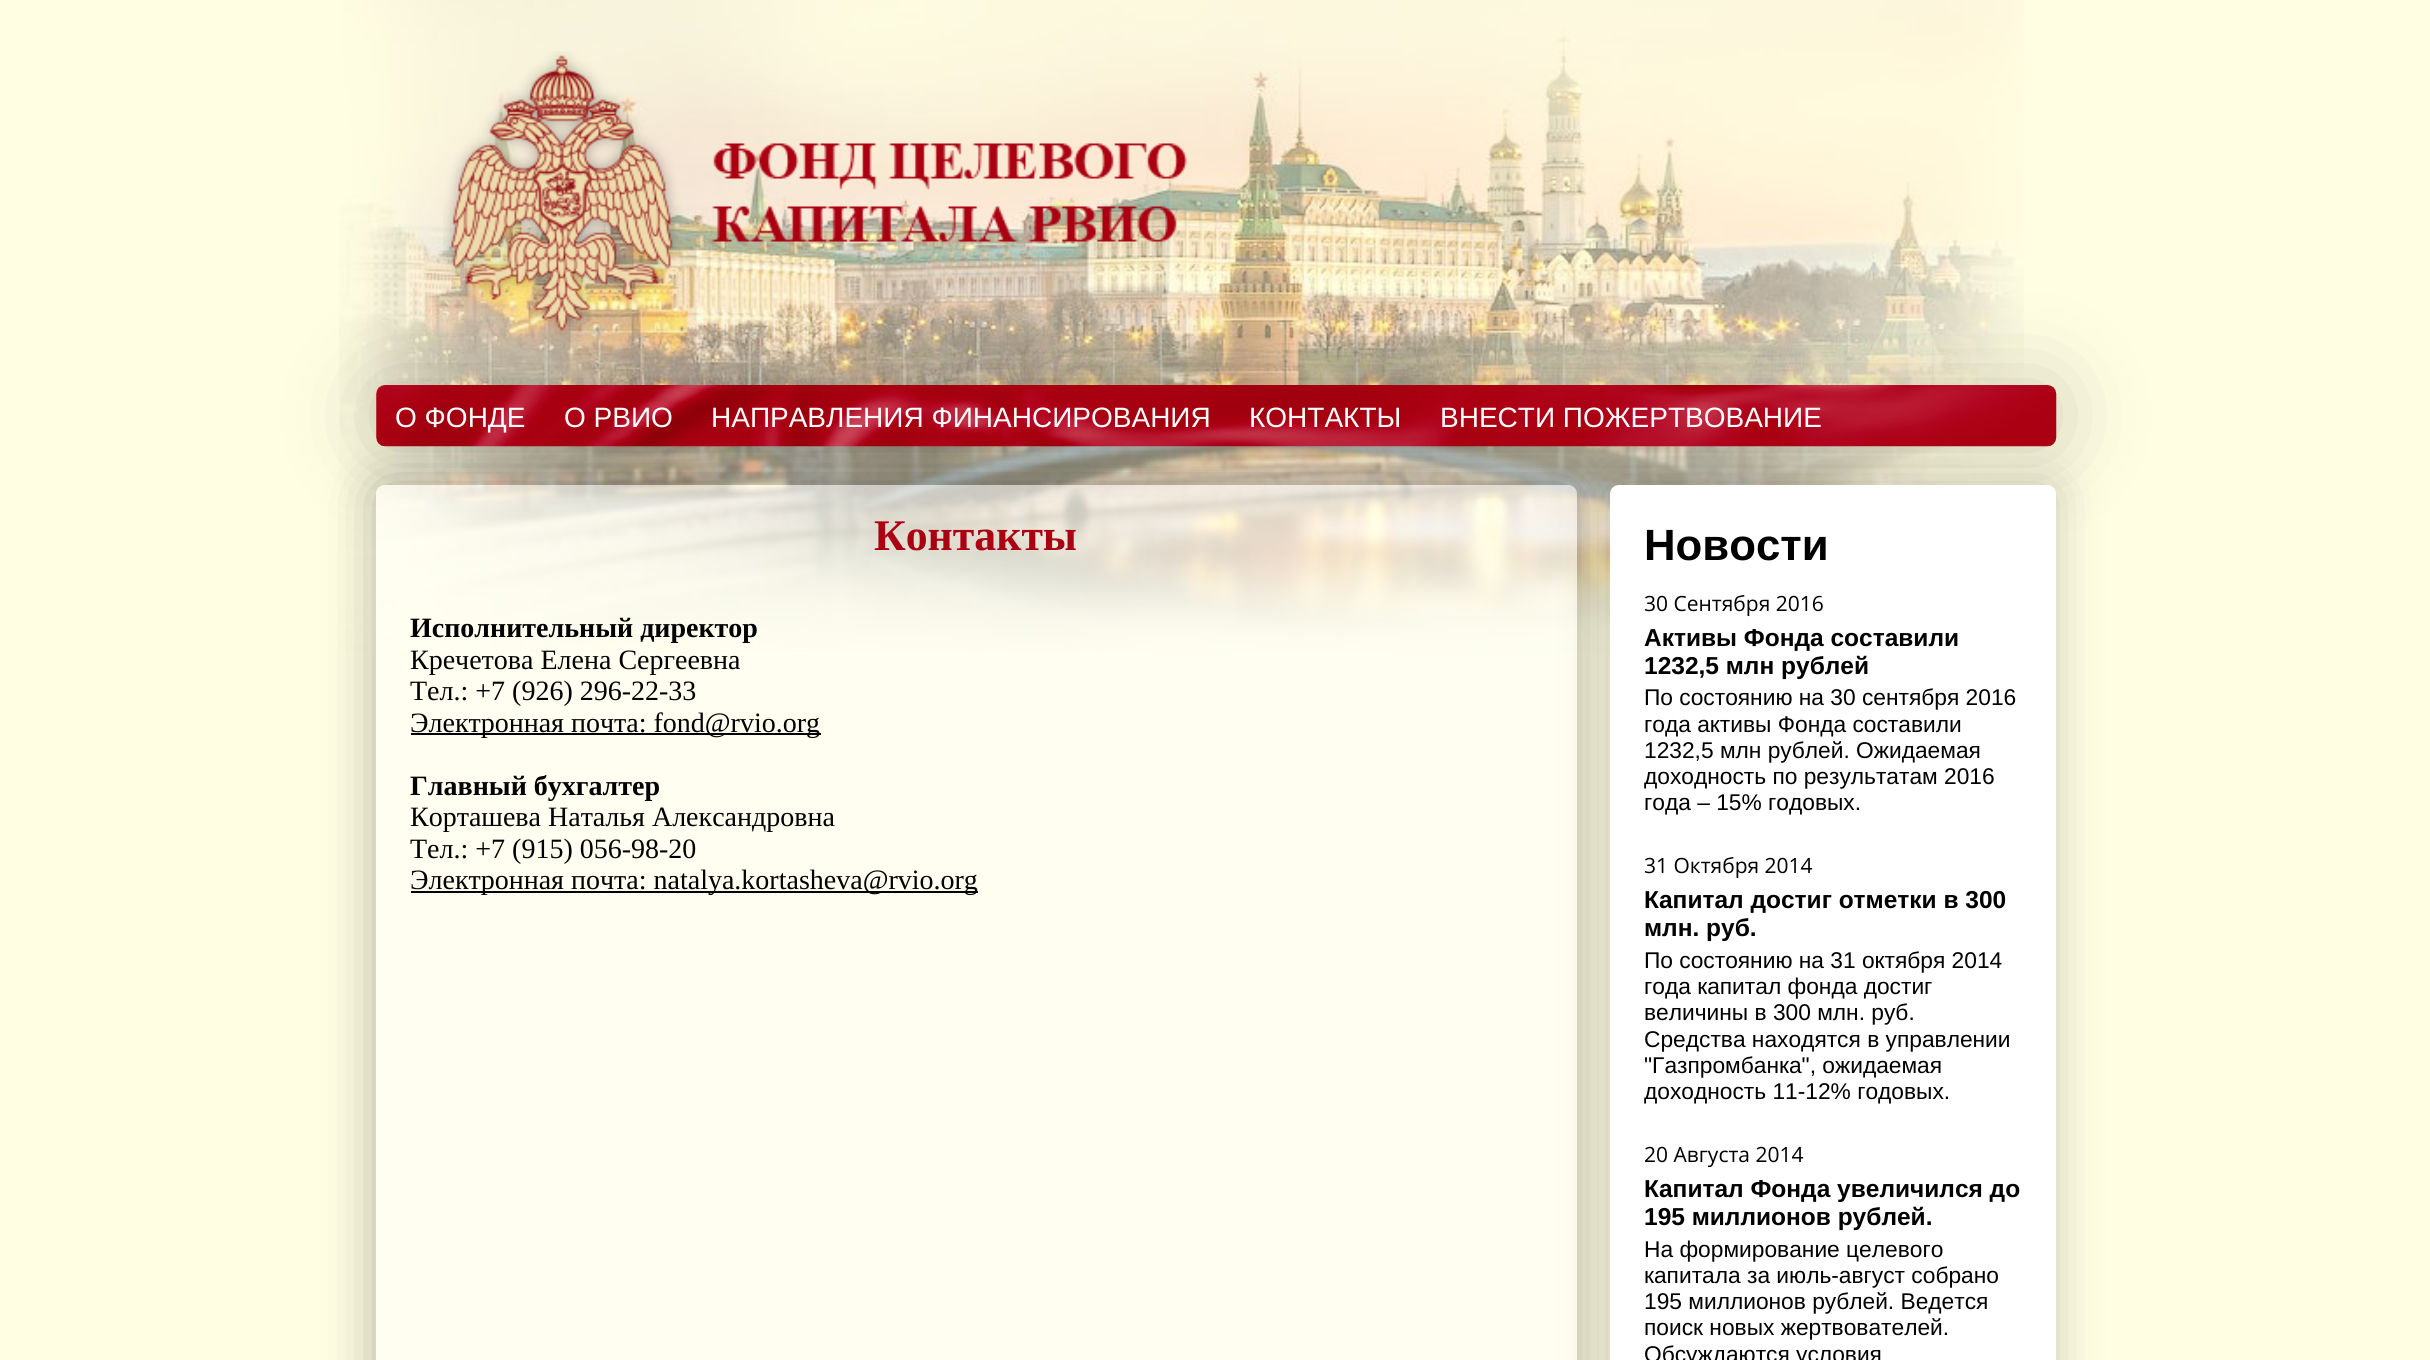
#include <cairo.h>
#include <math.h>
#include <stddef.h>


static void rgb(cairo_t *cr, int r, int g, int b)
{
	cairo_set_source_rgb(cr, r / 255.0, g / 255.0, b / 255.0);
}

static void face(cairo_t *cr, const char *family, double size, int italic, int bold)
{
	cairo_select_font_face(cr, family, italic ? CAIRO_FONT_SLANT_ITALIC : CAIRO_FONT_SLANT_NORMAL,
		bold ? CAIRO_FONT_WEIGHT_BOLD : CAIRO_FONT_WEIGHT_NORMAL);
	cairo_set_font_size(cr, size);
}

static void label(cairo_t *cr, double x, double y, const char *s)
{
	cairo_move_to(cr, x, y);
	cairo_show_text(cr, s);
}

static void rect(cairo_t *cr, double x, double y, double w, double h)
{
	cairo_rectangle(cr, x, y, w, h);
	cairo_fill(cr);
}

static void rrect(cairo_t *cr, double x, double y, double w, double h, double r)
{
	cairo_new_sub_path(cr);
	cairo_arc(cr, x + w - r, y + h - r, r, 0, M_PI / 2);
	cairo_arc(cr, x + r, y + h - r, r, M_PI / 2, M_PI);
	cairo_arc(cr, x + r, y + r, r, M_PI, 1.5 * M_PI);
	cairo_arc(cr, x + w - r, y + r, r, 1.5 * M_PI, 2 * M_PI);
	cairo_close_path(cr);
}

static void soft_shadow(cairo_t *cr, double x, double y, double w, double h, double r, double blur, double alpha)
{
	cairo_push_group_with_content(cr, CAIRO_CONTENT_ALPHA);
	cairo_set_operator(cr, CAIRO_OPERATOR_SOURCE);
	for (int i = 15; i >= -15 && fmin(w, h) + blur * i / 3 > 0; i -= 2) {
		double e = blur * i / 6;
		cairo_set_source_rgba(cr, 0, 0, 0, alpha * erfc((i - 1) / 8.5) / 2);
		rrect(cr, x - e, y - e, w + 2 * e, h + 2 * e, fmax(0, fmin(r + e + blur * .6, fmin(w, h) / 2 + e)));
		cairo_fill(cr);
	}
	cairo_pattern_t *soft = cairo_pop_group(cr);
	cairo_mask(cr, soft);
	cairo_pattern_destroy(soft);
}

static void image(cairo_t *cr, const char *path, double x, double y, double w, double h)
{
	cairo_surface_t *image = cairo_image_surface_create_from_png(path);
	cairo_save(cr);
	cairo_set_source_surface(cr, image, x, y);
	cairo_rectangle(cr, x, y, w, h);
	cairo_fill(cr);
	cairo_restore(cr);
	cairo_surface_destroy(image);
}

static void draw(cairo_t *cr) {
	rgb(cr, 255, 253, 226);
	cairo_paint(cr);
	image(cr, "image0.png", 339, 0, 1685, 652);
	rgb(cr, 0, 0, 0);
	soft_shadow(cr, 376, 385, 1680, 61, 9, 44, 0.2);
	image(cr, "image1.png", 443, 51, 744, 284);
	image(cr, "image2.png", 376, 385, 1681, 62);
	face(cr, "Liberation Sans", 28, 0, 0);
	rgb(cr, 255, 255, 255);
	label(cr, 395, 427, "О ФОНДЕ");
	label(cr, 564, 427, "О РВИО");
	label(cr, 711, 427, "НАПРАВЛЕНИЯ ФИНАНСИРОВАНИЯ");
	label(cr, 1249, 427, "КОНТАКТЫ");
	label(cr, 1440, 427, "ВНЕСТИ ПОЖЕРТВОВАНИЕ");
	cairo_save(cr);
	cairo_set_fill_rule(cr, CAIRO_FILL_RULE_EVEN_ODD);
	cairo_new_path(cr);
	cairo_move_to(cr, 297, 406);
	cairo_line_to(cr, 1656, 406);
	cairo_line_to(cr, 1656, 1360);
	cairo_line_to(cr, 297, 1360);
	cairo_close_path(cr);
	cairo_move_to(cr, 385, 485);
	cairo_line_to(cr, 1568, 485);
	cairo_curve_to(cr, 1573, 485, 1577, 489, 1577, 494);
	cairo_line_to(cr, 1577, 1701);
	cairo_curve_to(cr, 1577, 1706, 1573, 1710, 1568, 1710);
	cairo_line_to(cr, 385, 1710);
	cairo_curve_to(cr, 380, 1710, 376, 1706, 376, 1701);
	cairo_line_to(cr, 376, 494);
	cairo_curve_to(cr, 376, 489, 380, 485, 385, 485);
	cairo_close_path(cr);
	cairo_clip(cr);
	rgb(cr, 0, 0, 0);
	soft_shadow(cr, 376, 485, 1201, 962, 9, 26, 0.3);
	cairo_restore(cr);
	cairo_set_source_rgba(cr, 1, 1, 1, 0.5);
	rrect(cr, 376, 485, 1201, 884, 9);
	cairo_fill(cr);
	face(cr, "Liberation Serif", 43.75, 0, 1);
	rgb(cr, 170, 0, 18);
	label(cr, 874, 550, "Контакты");
	face(cr, "Liberation Serif", 28, 0, 1);
	rgb(cr, 0, 0, 0);
	label(cr, 410, 637, "Исполнительный директор");
	face(cr, "Liberation Serif", 28, 0, 0);
	label(cr, 410, 669, "Кречетова Елена Сергеевна");
	label(cr, 410, 700, "Тел.: +7 (926) 296-22-33");
	rect(cr, 411, 733, 410, 2);
	label(cr, 410, 732, "Электронная почта: fond@rvio.org");
	face(cr, "Liberation Serif", 28, 0, 1);
	label(cr, 410, 795, "Главный бухгалтер");
	face(cr, "Liberation Serif", 28, 0, 0);
	label(cr, 410, 826, "Корташева Наталья Александровна");
	label(cr, 410, 858, "Тел.: +7 (915) 056-98-20");
	rect(cr, 411, 891, 567, 2);
	label(cr, 410, 889, "Электронная почта: natalya.kortasheva@rvio.org");
	rgb(cr, 0, 0, 0);
	soft_shadow(cr, 1610, 485, 446, 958, 9, 24.5, 0.2);
	rgb(cr, 255, 255, 255);
	rrect(cr, 1610, 485, 446, 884, 9);
	cairo_fill(cr);
	face(cr, "Liberation Sans", 43.75, 0, 1);
	rgb(cr, 0, 0, 0);
	label(cr, 1644, 560, "Новости");
	face(cr, "Open Sans", 21, 0, 0);
	label(cr, 1644, 611, "30 Сентября 2016");
	face(cr, "Liberation Sans", 24.5, 0, 1);
	label(cr, 1644, 646, "Активы Фонда составили");
	label(cr, 1644, 674, "1232,5 млн рублей");
	face(cr, "Liberation Sans", 22.75, 0, 0);
	label(cr, 1644, 705, "По состоянию на 30 сентября 2016");
	label(cr, 1644, 732, "года активы Фонда составили");
	label(cr, 1644, 758, "1232,5 млн рублей. Ожидаемая");
	label(cr, 1644, 784, "доходность по результатам 2016");
	label(cr, 1644, 810, "года – 15% годовых.");
	face(cr, "Open Sans", 21, 0, 0);
	label(cr, 1644, 873, "31 Октября 2014");
	face(cr, "Liberation Sans", 24.5, 0, 1);
	label(cr, 1644, 908, "Капитал достиг отметки в 300");
	label(cr, 1644, 936, "млн. руб.");
	face(cr, "Liberation Sans", 22.75, 0, 0);
	label(cr, 1644, 968, "По состоянию на 31 октября 2014");
	label(cr, 1644, 994, "года капитал фонда достиг");
	label(cr, 1644, 1020, "величины в 300 млн. руб.");
	label(cr, 1644, 1047, "Средства находятся в управлении");
	label(cr, 1644, 1073, "\"Газпромбанка\", ожидаемая");
	label(cr, 1644, 1099, "доходность 11-12% годовых.");
	face(cr, "Open Sans", 21, 0, 0);
	label(cr, 1644, 1162, "20 Августа 2014");
	face(cr, "Liberation Sans", 24.5, 0, 1);
	label(cr, 1644, 1197, "Капитал Фонда увеличился до");
	label(cr, 1644, 1225, "195 миллионов рублей.");
	face(cr, "Liberation Sans", 22.75, 0, 0);
	label(cr, 1644, 1257, "На формирование целевого");
	label(cr, 1644, 1283, "капитала за июль-август собрано");
	label(cr, 1644, 1309, "195 миллионов рублей. Ведется");
	label(cr, 1644, 1335, "поиск новых жертвователей.");
	label(cr, 1644, 1362, "Обсуждаются условия");
}

int main(void) {
	cairo_surface_t *surface = cairo_image_surface_create(CAIRO_FORMAT_RGB24, 2430, 1360);
	cairo_t *cr = cairo_create(surface);
	cairo_font_options_t *options = cairo_font_options_create();
	cairo_font_options_set_hint_metrics(options, CAIRO_HINT_METRICS_OFF);
	cairo_font_options_set_hint_style(options, CAIRO_HINT_STYLE_NONE);
	cairo_set_font_options(cr, options);
	cairo_set_miter_limit(cr, 4);
	draw(cr);
	cairo_surface_write_to_png(surface, "render.png");
	cairo_font_options_destroy(options);
	cairo_destroy(cr);
	cairo_surface_destroy(surface);
	return 0;
}
